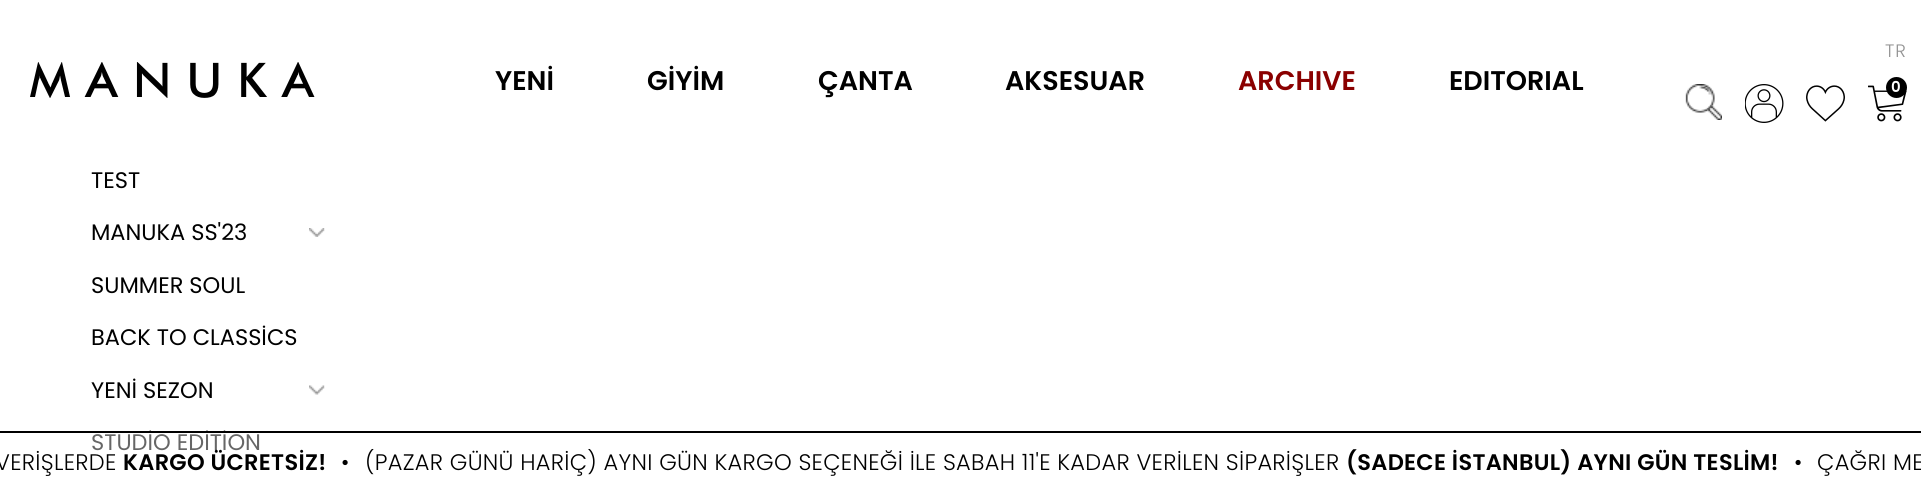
#include <cairo.h>
#include <math.h>
#include <stddef.h>


static void rgb(cairo_t *cr, int r, int g, int b)
{
	cairo_set_source_rgb(cr, r / 255.0, g / 255.0, b / 255.0);
}

static void face(cairo_t *cr, const char *family, double size, int italic, int bold)
{
	cairo_select_font_face(cr, family, italic ? CAIRO_FONT_SLANT_ITALIC : CAIRO_FONT_SLANT_NORMAL,
		bold ? CAIRO_FONT_WEIGHT_BOLD : CAIRO_FONT_WEIGHT_NORMAL);
	cairo_set_font_size(cr, size);
}

static void label(cairo_t *cr, double x, double y, const char *s)
{
	cairo_move_to(cr, x, y);
	cairo_show_text(cr, s);
}

static void tracked(cairo_t *cr, double x, double y, const char *s, double letter, double word)
{
	cairo_move_to(cr, x, y);
	while (*s) {
		char ch[5] = {0};
		int n = 0;
		do ch[n++] = *s++; while ((*s & 0xC0) == 0x80);
		cairo_show_text(cr, ch);
		cairo_rel_move_to(cr, letter + word * (*ch == ' '), 0);
	}
}

static void rect(cairo_t *cr, double x, double y, double w, double h)
{
	cairo_rectangle(cr, x, y, w, h);
	cairo_fill(cr);
}

static void image(cairo_t *cr, const char *path, double x, double y, double w, double h)
{
	cairo_surface_t *image = cairo_image_surface_create_from_png(path);
	cairo_save(cr);
	cairo_set_source_surface(cr, image, x, y);
	cairo_rectangle(cr, x, y, w, h);
	cairo_fill(cr);
	cairo_restore(cr);
	cairo_surface_destroy(image);
}

static void draw(cairo_t *cr) {
	rgb(cr, 255, 255, 255);
	cairo_paint(cr);
	image(cr, "image0.png", 30, 62, 285, 36);
	face(cr, "Poppins SemiBold", 27, 0, 0);
	rgb(cr, 0, 0, 0);
	label(cr, 495, 90, "YENİ");
	label(cr, 647, 90, "GİYİM");
	label(cr, 818, 90, "ÇANTA");
	label(cr, 1005, 90, "AKSESUAR");
	rgb(cr, 138, 0, 0);
	label(cr, 1238, 90, "ARCHIVE");
	rgb(cr, 0, 0, 0);
	label(cr, 1449, 90, "EDITORIAL");
	face(cr, "Poppins Light", 18, 0, 0);
	rgb(cr, 146, 146, 146);
	tracked(cr, 1885, 57, "TR", 1, 0);
	image(cr, "image1.png", 1685, 84, 37, 36);
	image(cr, "image2.png", 1745, 84, 39, 39);
	image(cr, "image3.png", 1806, 85, 39, 37);
	image(cr, "image4.png", 1868, 85, 39, 37);
	rgb(cr, 0, 0, 0);
	cairo_arc(cr, 1896.5, 87.5, 10.5, 0, 2 * M_PI);
	cairo_fill(cr);
	face(cr, "Poppins SemiBold", 15, 0, 0);
	rgb(cr, 255, 255, 255);
	label(cr, 1891, 92, "0");
	face(cr, "Poppins", 22.5, 0, 0);
	rgb(cr, 0, 0, 0);
	label(cr, 91, 450, "STUDİO EDİTİON");
	cairo_set_source_rgba(cr, 1, 1, 1, 0.4);
	rect(cr, 92, 434, 167, 17);
	rgb(cr, 0, 0, 0);
	rect(cr, 0, 431, 1921, 2);
	face(cr, "Poppins Light", 22.5, 0, 0);
	tracked(cr, -5, 470, "VERİŞLERDE", 0.3, 0);
	face(cr, "Poppins SemiBold", 22.5, 0, 0);
	tracked(cr, 123, 470, "KARGO ÜCRETSİZ!", 0.3, 0);
	face(cr, "Poppins Light", 22.5, 0, 0);
	tracked(cr, 341, 470, "•", 0.3, 0);
	tracked(cr, 365, 470, "(PAZAR GÜNÜ HARİÇ) AYNI GÜN KARGO SEÇENEĞİ İLE SABAH 11'E KADAR VERİLEN SİPARİŞLER", 0.3, 0);
	face(cr, "Poppins SemiBold", 22.5, 0, 0);
	tracked(cr, 1346, 470, "(SADECE İSTANBUL) AYNI GÜN TESLİM!", 0.3, 0);
	face(cr, "Poppins Light", 22.5, 0, 0);
	tracked(cr, 1794, 470, "•", 0.3, 0);
	tracked(cr, 1817, 470, "ÇAĞRI ME", 0.3, 0);
	face(cr, "Poppins", 22.5, 0, 0);
	label(cr, 91, 188, "TEST");
	image(cr, "image5.png", 309, 228, 16, 9);
	label(cr, 91, 240, "MANUKA SS'23");
	label(cr, 91, 293, "SUMMER SOUL");
	label(cr, 91, 345, "BACK TO CLASSİCS");
	image(cr, "image6.png", 309, 385, 16, 10);
	label(cr, 91, 398, "YENİ SEZON");
}

int main(void) {
	cairo_surface_t *surface = cairo_image_surface_create(CAIRO_FORMAT_RGB24, 1921, 491);
	cairo_t *cr = cairo_create(surface);
	cairo_font_options_t *options = cairo_font_options_create();
	cairo_font_options_set_hint_metrics(options, CAIRO_HINT_METRICS_OFF);
	cairo_font_options_set_hint_style(options, CAIRO_HINT_STYLE_NONE);
	cairo_set_font_options(cr, options);
	cairo_set_miter_limit(cr, 4);
	draw(cr);
	cairo_surface_write_to_png(surface, "render.png");
	cairo_font_options_destroy(options);
	cairo_destroy(cr);
	cairo_surface_destroy(surface);
	return 0;
}
